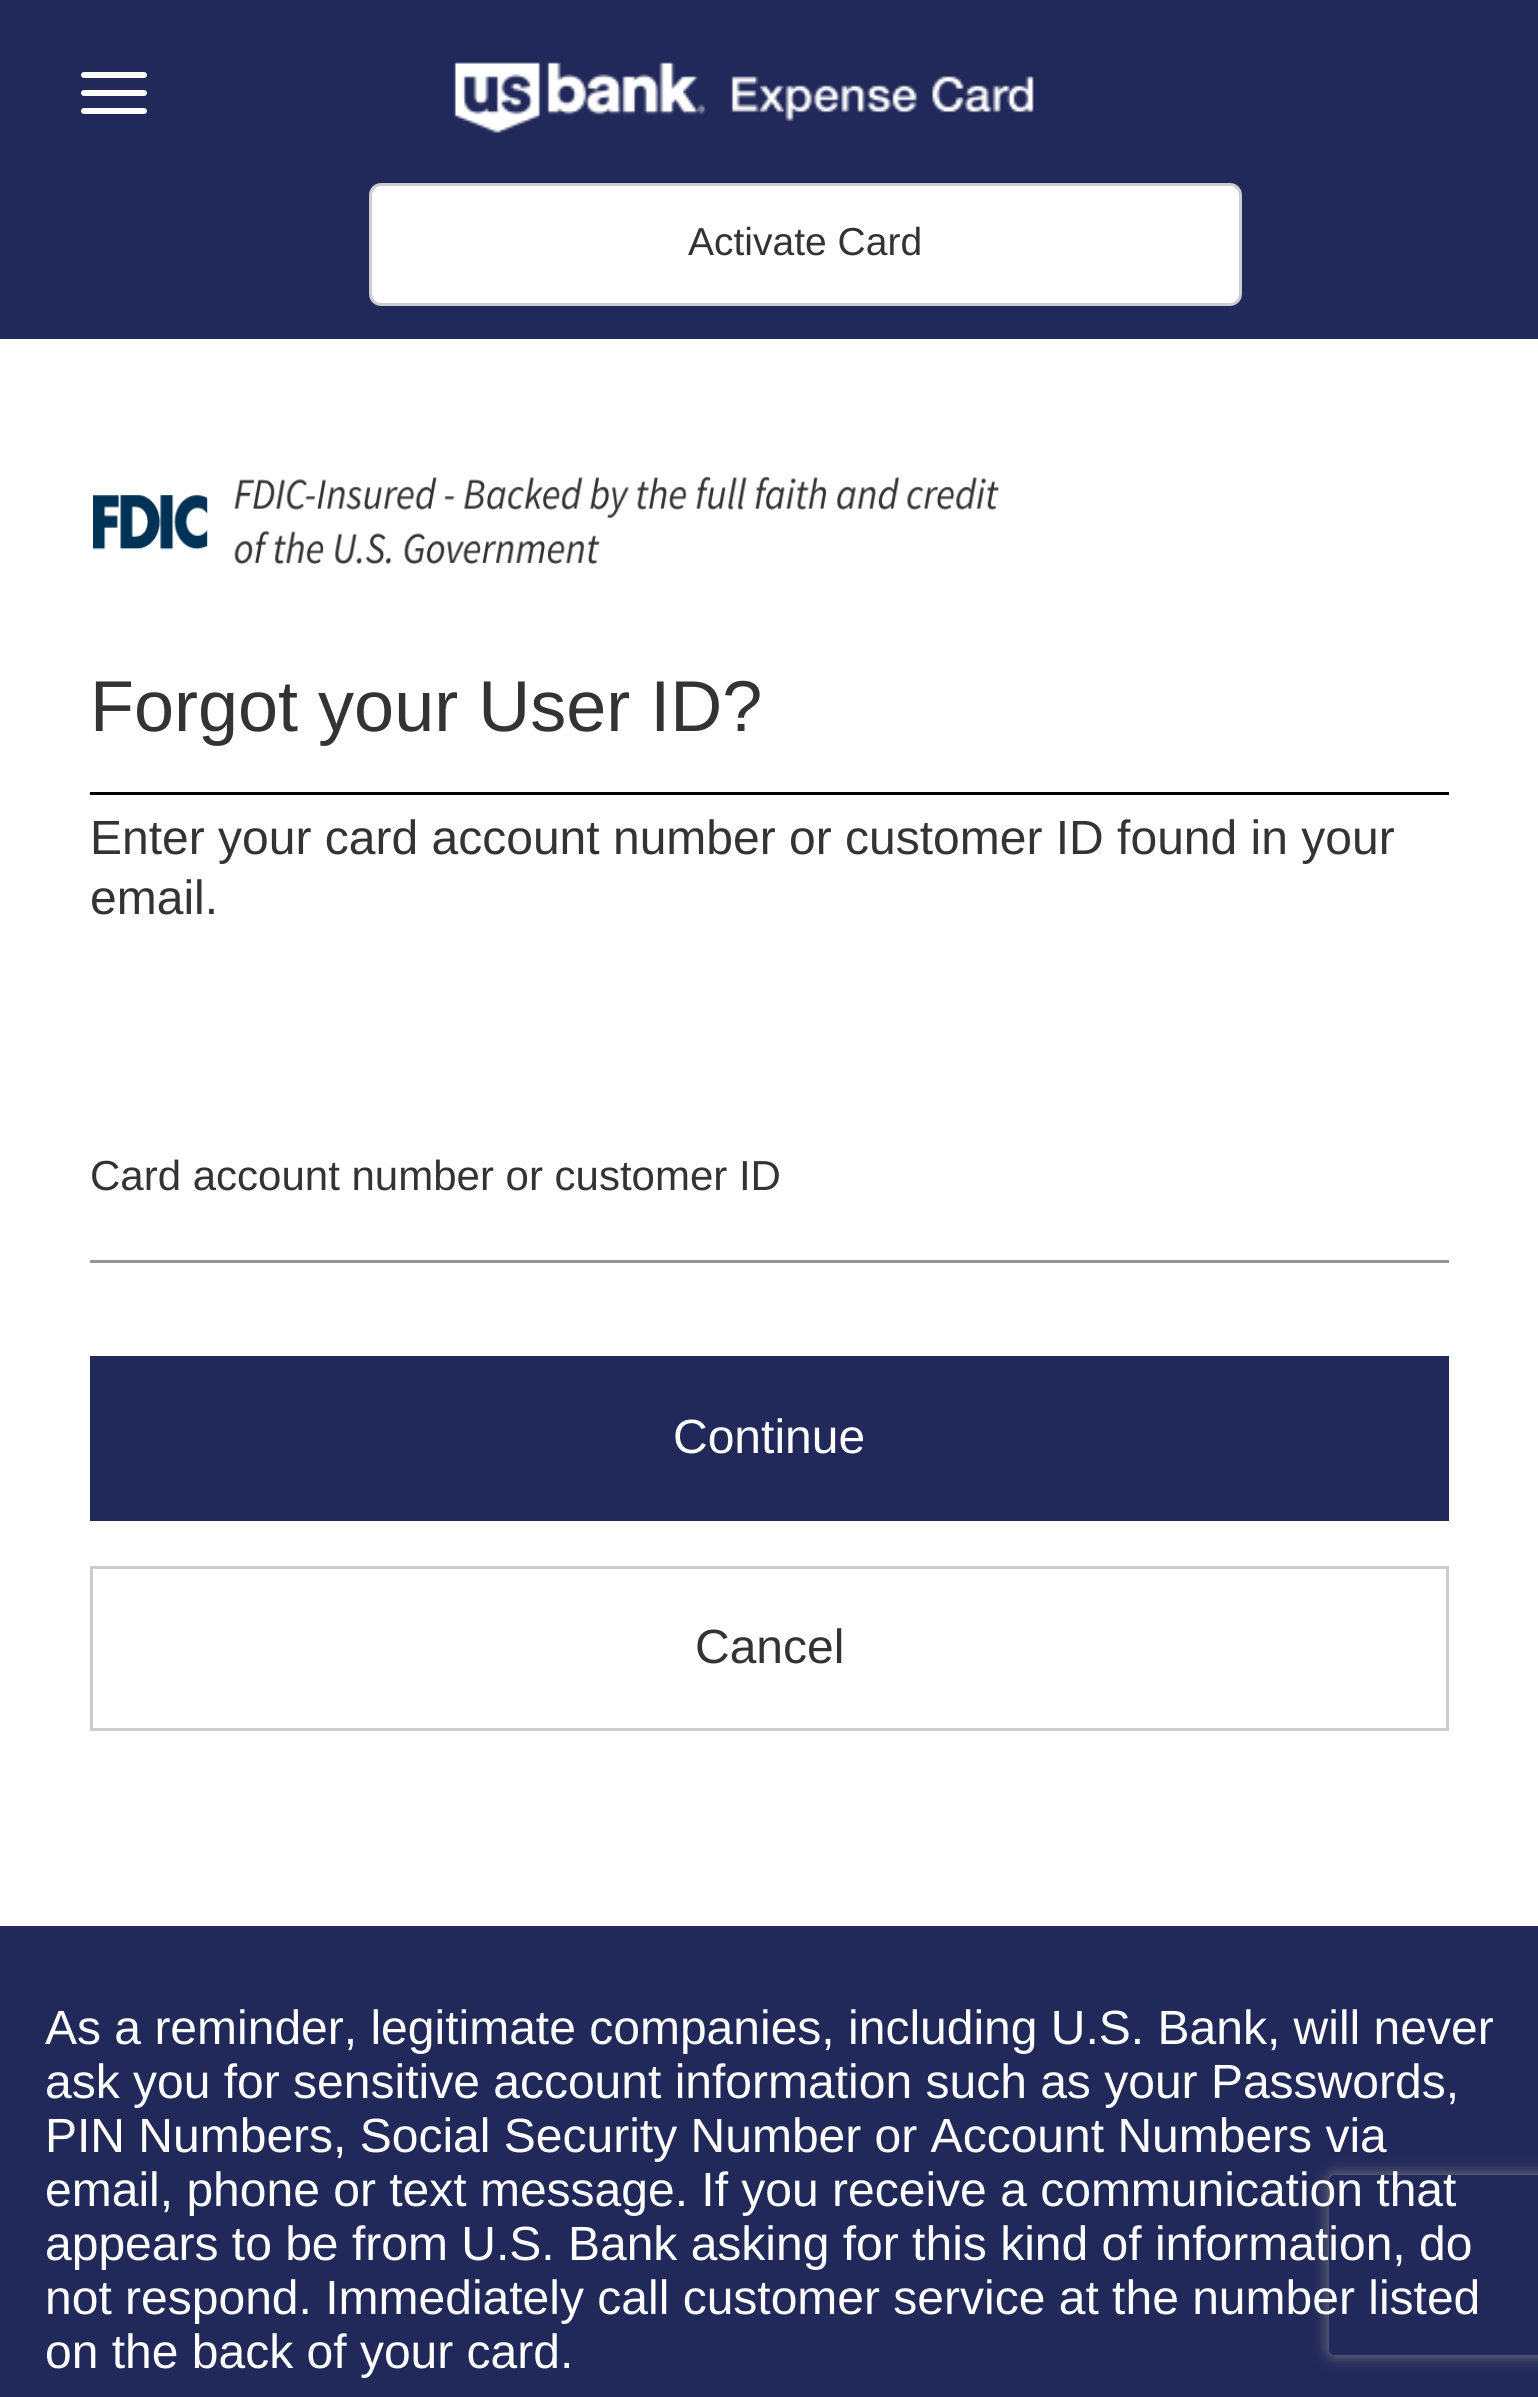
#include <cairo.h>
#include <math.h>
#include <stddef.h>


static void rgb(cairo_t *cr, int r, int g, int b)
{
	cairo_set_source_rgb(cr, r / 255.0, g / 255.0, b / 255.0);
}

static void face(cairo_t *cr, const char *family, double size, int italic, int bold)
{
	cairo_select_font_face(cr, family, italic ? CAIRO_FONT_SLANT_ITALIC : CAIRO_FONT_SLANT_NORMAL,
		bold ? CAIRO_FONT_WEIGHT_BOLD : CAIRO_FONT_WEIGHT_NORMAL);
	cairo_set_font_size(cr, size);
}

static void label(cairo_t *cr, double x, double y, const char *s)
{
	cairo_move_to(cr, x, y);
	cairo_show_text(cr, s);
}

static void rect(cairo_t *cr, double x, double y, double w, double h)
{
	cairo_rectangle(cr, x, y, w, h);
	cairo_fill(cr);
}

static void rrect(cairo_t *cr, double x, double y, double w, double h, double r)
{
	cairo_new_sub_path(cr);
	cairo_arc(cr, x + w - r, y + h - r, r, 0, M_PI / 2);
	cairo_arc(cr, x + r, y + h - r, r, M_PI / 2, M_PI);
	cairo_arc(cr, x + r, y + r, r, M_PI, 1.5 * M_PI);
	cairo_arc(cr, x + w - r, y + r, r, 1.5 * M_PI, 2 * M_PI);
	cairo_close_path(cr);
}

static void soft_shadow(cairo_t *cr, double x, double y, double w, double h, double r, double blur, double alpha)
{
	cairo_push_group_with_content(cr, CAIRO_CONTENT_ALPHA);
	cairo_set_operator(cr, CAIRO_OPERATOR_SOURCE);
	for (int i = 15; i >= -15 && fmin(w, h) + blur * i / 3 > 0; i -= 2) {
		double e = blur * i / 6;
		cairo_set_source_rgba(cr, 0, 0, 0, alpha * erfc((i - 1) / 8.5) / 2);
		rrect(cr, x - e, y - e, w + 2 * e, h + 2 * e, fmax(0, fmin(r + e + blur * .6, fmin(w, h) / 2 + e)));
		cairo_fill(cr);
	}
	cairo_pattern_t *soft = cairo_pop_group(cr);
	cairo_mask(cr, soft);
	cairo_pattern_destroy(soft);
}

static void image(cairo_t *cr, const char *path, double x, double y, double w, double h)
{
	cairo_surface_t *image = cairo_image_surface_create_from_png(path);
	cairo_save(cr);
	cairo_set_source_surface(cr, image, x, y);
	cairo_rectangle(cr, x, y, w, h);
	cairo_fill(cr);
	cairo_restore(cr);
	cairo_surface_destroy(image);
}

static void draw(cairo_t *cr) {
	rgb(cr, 255, 255, 255);
	cairo_paint(cr);
	rgb(cr, 33, 41, 90);
	rect(cr, 0, 0, 1538, 339);
	rgb(cr, 255, 255, 255);
	rrect(cr, 81, 72, 66, 6, 3);
	cairo_fill(cr);
	rrect(cr, 81, 90, 66, 6, 3);
	cairo_fill(cr);
	rrect(cr, 81, 108, 66, 6, 3);
	cairo_fill(cr);
	image(cr, "image0.png", 454, 62, 580, 71);
	rrect(cr, 370.5, 184.5, 870, 120, 10.5);
	cairo_fill_preserve(cr);
	rgb(cr, 204, 204, 204);
	cairo_set_line_width(cr, 3);
	cairo_stroke(cr);
	face(cr, "Liberation Sans", 39, 0, 0);
	rgb(cr, 51, 51, 51);
	label(cr, 688, 255, "Activate Card");
	image(cr, "image1.png", 93, 477, 906, 87);
	rgb(cr, 0, 0, 0);
	rect(cr, 90, 792, 1359, 3);
	face(cr, "Liberation Sans", 72, 0, 0);
	rgb(cr, 51, 51, 51);
	label(cr, 90, 731, "Forgot your User ID?");
	face(cr, "Liberation Sans", 48, 0, 0);
	label(cr, 90, 854, "Enter your card account number or customer ID found in your");
	label(cr, 90, 914, "email.");
	face(cr, "Liberation Sans", 42, 0, 0);
	label(cr, 90, 1190, "Card account number or customer ID");
	rgb(cr, 148, 148, 148);
	rect(cr, 90, 1260, 1359, 3);
	rgb(cr, 33, 41, 90);
	rect(cr, 90, 1356, 1359, 165);
	face(cr, "Liberation Sans", 48, 0, 0);
	rgb(cr, 255, 255, 255);
	label(cr, 673, 1453, "Continue");
	cairo_rectangle(cr, 91.5, 1567.5, 1356, 162);
	rgb(cr, 204, 204, 204);
	cairo_stroke(cr);
	rgb(cr, 51, 51, 51);
	label(cr, 695, 1663, "Cancel");
	rgb(cr, 33, 41, 90);
	rect(cr, 0, 1926, 1538, 471);
	cairo_save(cr);
	cairo_set_fill_rule(cr, CAIRO_FILL_RULE_EVEN_ODD);
	cairo_new_path(cr);
	cairo_move_to(cr, 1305, 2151);
	cairo_line_to(cr, 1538, 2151);
	cairo_line_to(cr, 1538, 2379);
	cairo_line_to(cr, 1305, 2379);
	cairo_close_path(cr);
	cairo_move_to(cr, 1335, 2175);
	cairo_line_to(cr, 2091, 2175);
	cairo_curve_to(cr, 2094.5, 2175, 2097, 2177.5, 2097, 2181);
	cairo_line_to(cr, 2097, 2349);
	cairo_curve_to(cr, 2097, 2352.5, 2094.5, 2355, 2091, 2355);
	cairo_line_to(cr, 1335, 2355);
	cairo_curve_to(cr, 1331.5, 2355, 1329, 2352.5, 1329, 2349);
	cairo_line_to(cr, 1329, 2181);
	cairo_curve_to(cr, 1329, 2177.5, 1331.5, 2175, 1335, 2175);
	cairo_close_path(cr);
	cairo_clip(cr);
	rgb(cr, 128, 128, 128);
	soft_shadow(cr, 1329, 2175, 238, 180, 6, 7.5, 1);
	cairo_restore(cr);
	rgb(cr, 255, 255, 255);
	label(cr, 45, 2044, "As a reminder, legitimate companies, including U.S. Bank, will never");
	label(cr, 45, 2098, "ask you for sensitive account information such as your Passwords,");
	label(cr, 45, 2152, "PIN Numbers, Social Security Number or Account Numbers via");
	label(cr, 45, 2206, "email, phone or text message. If you receive a communication that");
	label(cr, 45, 2260, "appears to be from U.S. Bank asking for this kind of information, do");
	label(cr, 45, 2314, "not respond. Immediately call customer service at the number listed");
	label(cr, 45, 2368, "on the back of your card.");
}

int main(void) {
	cairo_surface_t *surface = cairo_image_surface_create(CAIRO_FORMAT_RGB24, 1538, 2397);
	cairo_t *cr = cairo_create(surface);
	cairo_font_options_t *options = cairo_font_options_create();
	cairo_font_options_set_hint_metrics(options, CAIRO_HINT_METRICS_OFF);
	cairo_font_options_set_hint_style(options, CAIRO_HINT_STYLE_NONE);
	cairo_set_font_options(cr, options);
	cairo_set_miter_limit(cr, 4);
	draw(cr);
	cairo_surface_write_to_png(surface, "render.png");
	cairo_font_options_destroy(options);
	cairo_destroy(cr);
	cairo_surface_destroy(surface);
	return 0;
}
